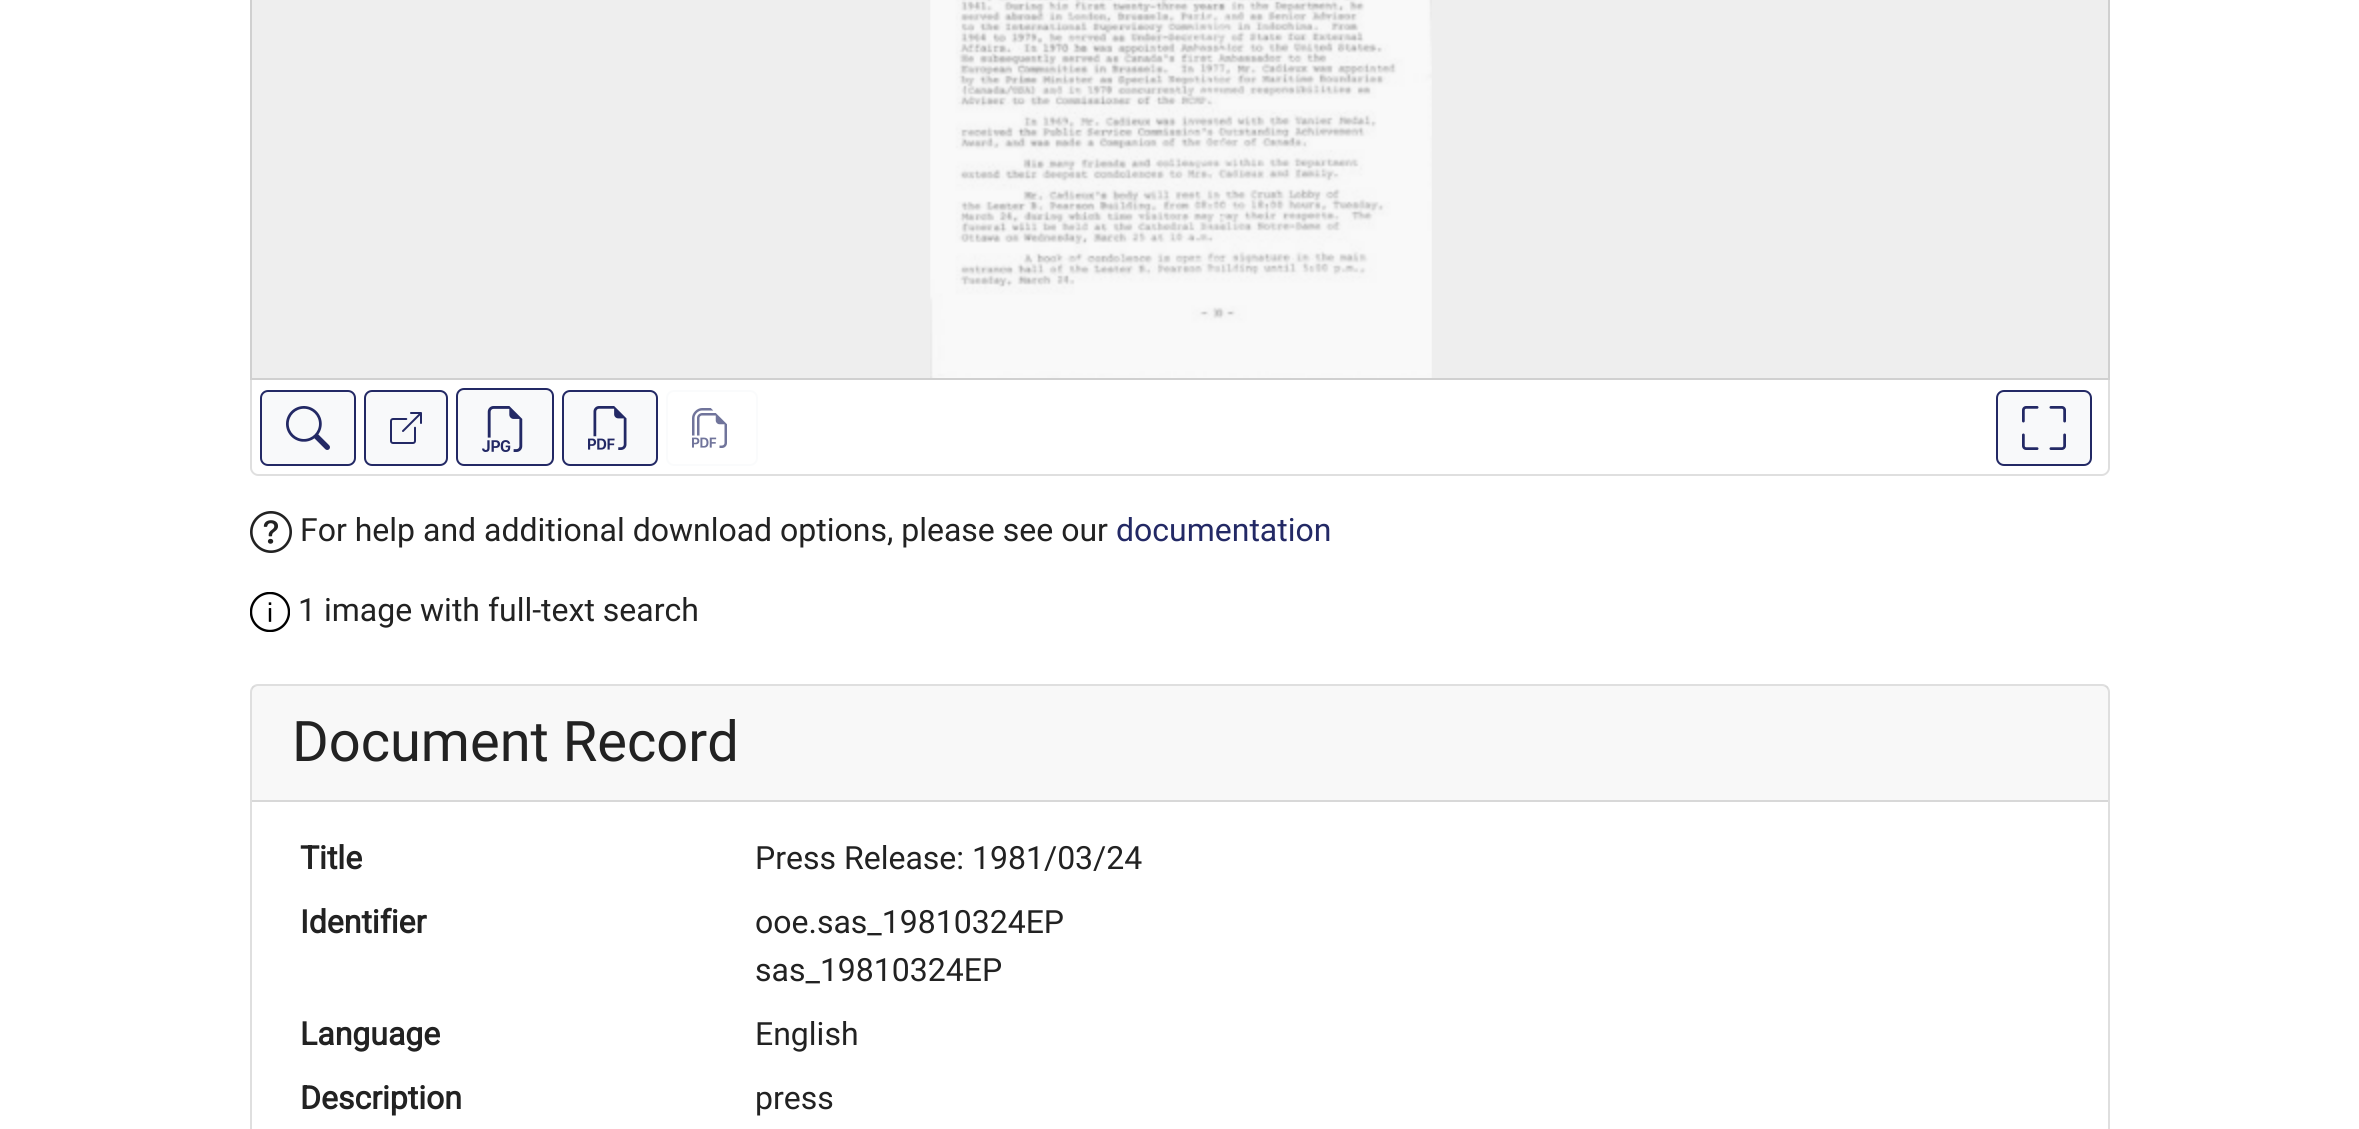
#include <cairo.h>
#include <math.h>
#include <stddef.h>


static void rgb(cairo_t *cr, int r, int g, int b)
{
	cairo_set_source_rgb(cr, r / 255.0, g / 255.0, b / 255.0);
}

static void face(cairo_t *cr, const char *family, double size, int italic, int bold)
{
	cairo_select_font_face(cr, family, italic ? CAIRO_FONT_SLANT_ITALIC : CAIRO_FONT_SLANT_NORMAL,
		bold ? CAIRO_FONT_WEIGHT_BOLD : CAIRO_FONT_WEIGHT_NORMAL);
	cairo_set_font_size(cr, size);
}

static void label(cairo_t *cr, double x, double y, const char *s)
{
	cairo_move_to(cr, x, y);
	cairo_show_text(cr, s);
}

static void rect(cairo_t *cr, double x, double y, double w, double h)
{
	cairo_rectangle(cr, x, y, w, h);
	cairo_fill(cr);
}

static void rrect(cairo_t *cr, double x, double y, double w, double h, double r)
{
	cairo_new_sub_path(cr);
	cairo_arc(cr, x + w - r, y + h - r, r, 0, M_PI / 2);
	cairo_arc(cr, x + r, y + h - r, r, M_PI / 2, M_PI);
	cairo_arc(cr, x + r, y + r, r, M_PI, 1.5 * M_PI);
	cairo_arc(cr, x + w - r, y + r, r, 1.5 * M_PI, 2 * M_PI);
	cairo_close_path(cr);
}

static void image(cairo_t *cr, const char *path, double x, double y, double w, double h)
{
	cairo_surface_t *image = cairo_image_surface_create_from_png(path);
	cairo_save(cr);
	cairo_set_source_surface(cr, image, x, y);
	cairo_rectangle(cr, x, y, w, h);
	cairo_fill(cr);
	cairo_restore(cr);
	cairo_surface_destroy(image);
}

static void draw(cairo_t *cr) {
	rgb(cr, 255, 255, 255);
	cairo_paint(cr);
	rgb(cr, 238, 238, 238);
	cairo_rectangle(cr, 251, -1, 1858, 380);
	cairo_fill_preserve(cr);
	rgb(cr, 208, 208, 208);
	cairo_stroke(cr);
	image(cr, "image0.png", 930, 0, 502, 378);
	rgb(cr, 223, 223, 223);
	cairo_set_fill_rule(cr, CAIRO_FILL_RULE_EVEN_ODD);
	cairo_new_path(cr);
	cairo_move_to(cr, 250, 380);
	cairo_line_to(cr, 2110, 380);
	cairo_line_to(cr, 2110, 468);
	cairo_curve_to(cr, 2110, 472, 2106, 476, 2102, 476);
	cairo_line_to(cr, 258, 476);
	cairo_curve_to(cr, 254, 476, 250, 472, 250, 468);
	cairo_close_path(cr);
	cairo_move_to(cr, 252, 380);
	cairo_line_to(cr, 2108, 380);
	cairo_line_to(cr, 2108, 468);
	cairo_curve_to(cr, 2108, 471, 2105, 474, 2102, 474);
	cairo_line_to(cr, 258, 474);
	cairo_curve_to(cr, 255, 474, 252, 471, 252, 468);
	cairo_close_path(cr);
	cairo_fill(cr);
	rgb(cr, 248, 249, 250);
	rrect(cr, 261, 391, 94, 74, 7);
	cairo_fill_preserve(cr);
	rgb(cr, 35, 41, 101);
	cairo_stroke(cr);
	image(cr, "image1.png", 286, 406, 44, 44);
	rgb(cr, 248, 249, 250);
	rrect(cr, 365, 391, 82, 74, 7);
	cairo_fill_preserve(cr);
	rgb(cr, 35, 41, 101);
	cairo_stroke(cr);
	image(cr, "image2.png", 390, 412, 32, 32);
	rgb(cr, 248, 249, 250);
	rrect(cr, 457, 389, 96, 76, 7);
	cairo_fill_preserve(cr);
	rgb(cr, 35, 41, 101);
	cairo_stroke(cr);
	image(cr, "image3.png", 482, 406, 41, 46);
	rgb(cr, 248, 249, 250);
	rrect(cr, 563, 391, 94, 74, 7);
	cairo_fill_preserve(cr);
	rgb(cr, 35, 41, 101);
	cairo_stroke(cr);
	image(cr, "image4.png", 588, 406, 39, 44);
	rrect(cr, 667, 391, 90, 74, 7);
	rgb(cr, 250, 251, 252);
	cairo_stroke(cr);
	image(cr, "image5.png", 692, 408, 35, 40);
	rgb(cr, 248, 249, 250);
	rrect(cr, 1997, 391, 94, 74, 7);
	cairo_fill_preserve(cr);
	rgb(cr, 35, 41, 101);
	cairo_stroke(cr);
	image(cr, "image6.png", 2022, 406, 44, 44);
	image(cr, "image7.png", 250, 511, 42, 42);
	face(cr, "Roboto", 32, 0, 0);
	rgb(cr, 34, 34, 34);
	label(cr, 300, 541, "For help and additional download options, please see our");
	rgb(cr, 35, 41, 101);
	label(cr, 1116, 541, "documentation");
	image(cr, "image8.png", 250, 592, 40, 40);
	rgb(cr, 34, 34, 34);
	label(cr, 298, 621, "1 image with full-text search");
	rrect(cr, 251, 685, 1858, 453, 7);
	rgb(cr, 223, 223, 223);
	cairo_stroke(cr);
	cairo_set_source_rgba(cr, 0, 0, 0, 0.03);
	rect(cr, 252, 686, 1856, 114);
	rgb(cr, 216, 216, 216);
	rect(cr, 252, 800, 1856, 2);
	face(cr, "Roboto", 56, 0, 0);
	rgb(cr, 34, 34, 34);
	label(cr, 292, 761, "Document Record");
	face(cr, "Roboto", 32, 0, 1);
	label(cr, 300, 869, "Title");
	face(cr, "Roboto", 32, 0, 0);
	label(cr, 755, 869, "Press Release: 1981/03/24");
	face(cr, "Roboto", 32, 0, 1);
	label(cr, 300, 933, "Identifier");
	face(cr, "Roboto", 32, 0, 0);
	label(cr, 755, 933, "ooe.sas_19810324EP");
	label(cr, 755, 981, "sas_19810324EP");
	face(cr, "Roboto", 32, 0, 1);
	label(cr, 300, 1045, "Language");
	face(cr, "Roboto", 32, 0, 0);
	label(cr, 755, 1045, "English");
	face(cr, "Roboto", 32, 0, 1);
	label(cr, 300, 1109, "Description");
	face(cr, "Roboto", 32, 0, 0);
	label(cr, 755, 1109, "press");
}

int main(void) {
	cairo_surface_t *surface = cairo_image_surface_create(CAIRO_FORMAT_RGB24, 2359, 1129);
	cairo_t *cr = cairo_create(surface);
	cairo_font_options_t *options = cairo_font_options_create();
	cairo_font_options_set_hint_metrics(options, CAIRO_HINT_METRICS_OFF);
	cairo_font_options_set_hint_style(options, CAIRO_HINT_STYLE_NONE);
	cairo_set_font_options(cr, options);
	cairo_set_miter_limit(cr, 4);
	draw(cr);
	cairo_surface_write_to_png(surface, "render.png");
	cairo_font_options_destroy(options);
	cairo_destroy(cr);
	cairo_surface_destroy(surface);
	return 0;
}
